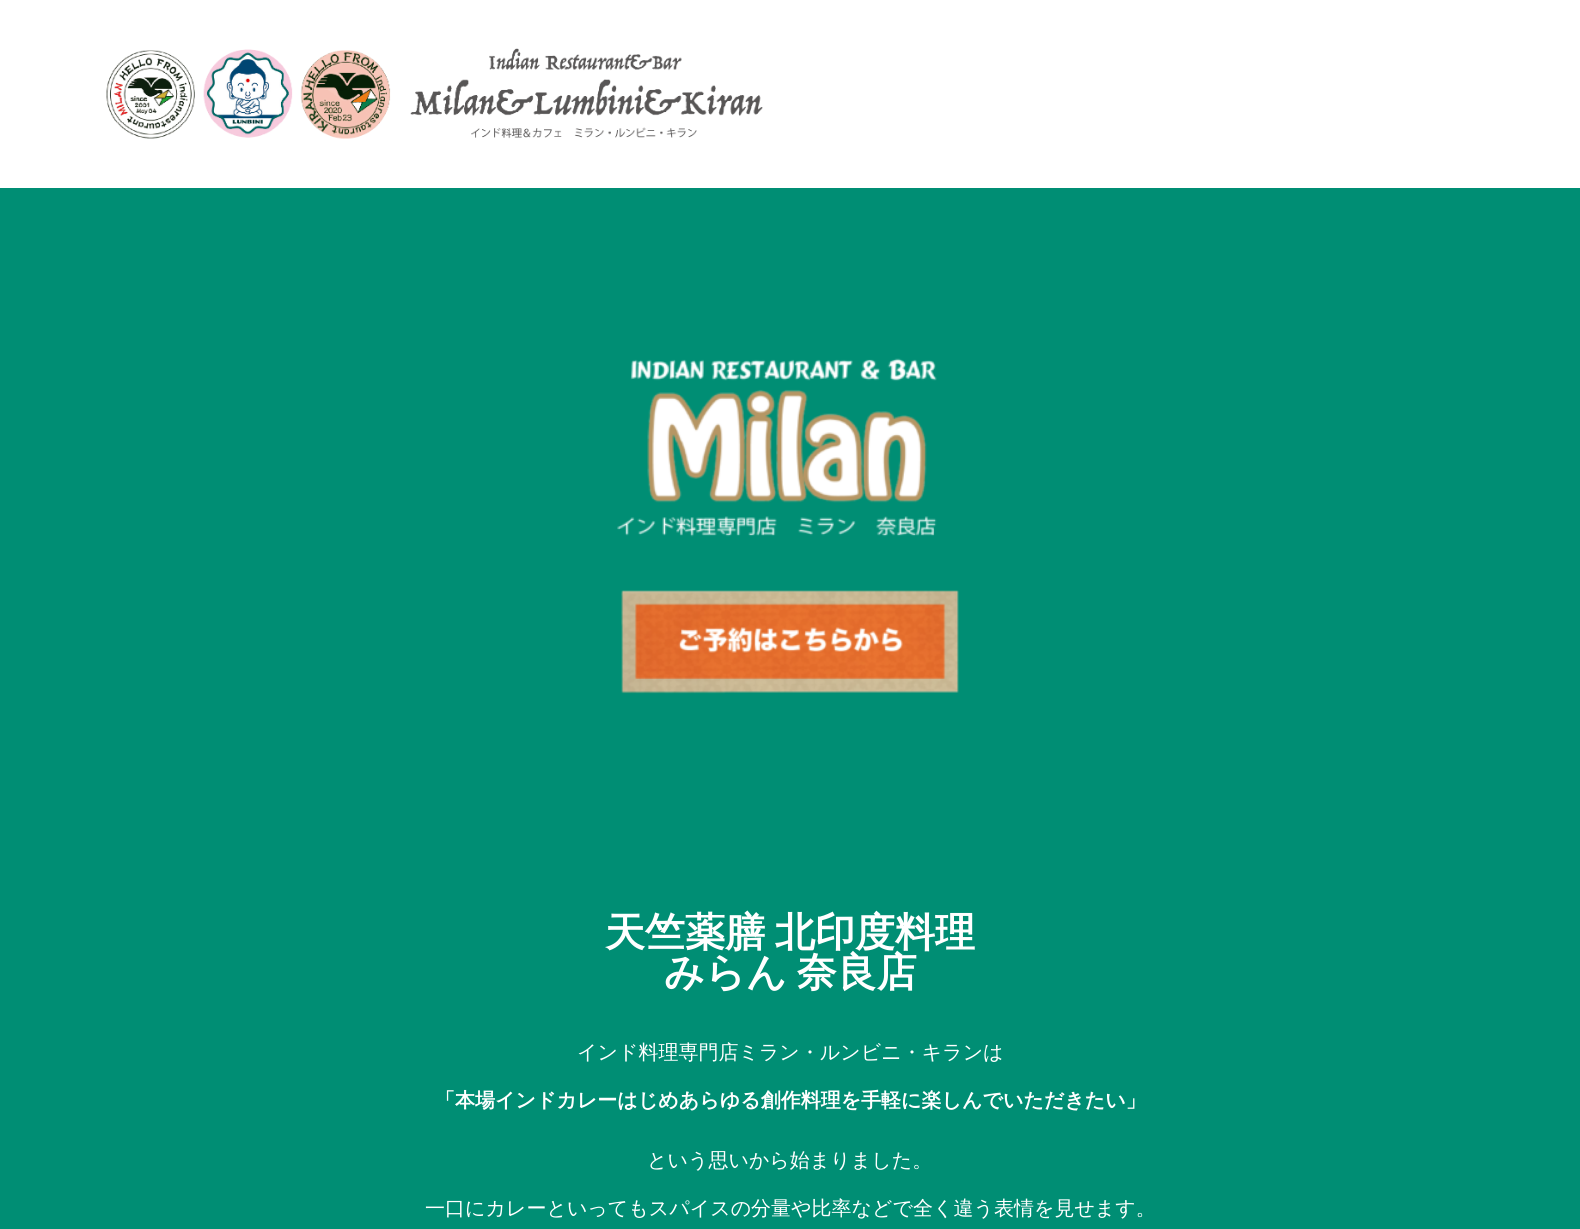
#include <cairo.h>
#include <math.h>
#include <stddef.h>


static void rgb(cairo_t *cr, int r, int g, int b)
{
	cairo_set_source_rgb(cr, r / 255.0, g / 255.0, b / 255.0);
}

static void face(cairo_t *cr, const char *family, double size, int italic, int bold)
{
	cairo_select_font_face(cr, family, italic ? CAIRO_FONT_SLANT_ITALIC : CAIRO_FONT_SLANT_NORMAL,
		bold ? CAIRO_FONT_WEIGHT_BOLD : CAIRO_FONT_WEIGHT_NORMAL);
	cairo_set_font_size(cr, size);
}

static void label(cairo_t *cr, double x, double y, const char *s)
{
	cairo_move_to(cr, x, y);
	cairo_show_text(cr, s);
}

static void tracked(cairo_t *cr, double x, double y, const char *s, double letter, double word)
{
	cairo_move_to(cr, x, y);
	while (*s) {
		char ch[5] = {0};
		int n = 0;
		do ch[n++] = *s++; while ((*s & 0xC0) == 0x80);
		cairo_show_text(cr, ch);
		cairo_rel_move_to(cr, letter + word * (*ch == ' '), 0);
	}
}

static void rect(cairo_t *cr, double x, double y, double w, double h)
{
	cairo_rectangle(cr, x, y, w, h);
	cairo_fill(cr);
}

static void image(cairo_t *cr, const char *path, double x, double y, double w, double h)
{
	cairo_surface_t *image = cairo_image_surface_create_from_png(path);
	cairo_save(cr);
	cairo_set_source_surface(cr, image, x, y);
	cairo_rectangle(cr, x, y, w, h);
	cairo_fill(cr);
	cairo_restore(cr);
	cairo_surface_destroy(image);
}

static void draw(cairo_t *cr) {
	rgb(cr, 0, 142, 116);
	cairo_paint(cr);
	rgb(cr, 255, 255, 255);
	rect(cr, 0, 0, 1580, 188);
	image(cr, "image0.png", 106, 48, 657, 91);
	image(cr, "image1.png", 617, 358, 320, 179);
	image(cr, "image2.png", 621, 590, 338, 104);
	face(cr, "WenQuanYi Zen Hei", 40, 0, 1);
	tracked(cr, 605, 946, "天竺薬膳 北印度料理", 0, -2);
	tracked(cr, 664, 986, "みらん 奈良店", 0, -2);
	face(cr, "WenQuanYi Zen Hei Medium", 20, 0, 0);
	label(cr, 577, 1059, "インド料理専門店ミラン・ルンビニ・キランは");
	face(cr, "WenQuanYi Zen Hei", 20, 0, 1);
	label(cr, 435, 1107, "「本場インドカレーはじめあらゆる創作料理を手軽に楽しんでいただきたい」");
	face(cr, "WenQuanYi Zen Hei Medium", 20, 0, 0);
	label(cr, 647, 1167, "という思いから始まりました。");
	label(cr, 425, 1215, "一口にカレーといってもスパイスの分量や比率などで全く違う表情を見せます。");
}

int main(void) {
	cairo_surface_t *surface = cairo_image_surface_create(CAIRO_FORMAT_RGB24, 1580, 1229);
	cairo_t *cr = cairo_create(surface);
	cairo_font_options_t *options = cairo_font_options_create();
	cairo_font_options_set_hint_metrics(options, CAIRO_HINT_METRICS_OFF);
	cairo_font_options_set_hint_style(options, CAIRO_HINT_STYLE_NONE);
	cairo_set_font_options(cr, options);
	cairo_set_miter_limit(cr, 4);
	draw(cr);
	cairo_surface_write_to_png(surface, "render.png");
	cairo_font_options_destroy(options);
	cairo_destroy(cr);
	cairo_surface_destroy(surface);
	return 0;
}
